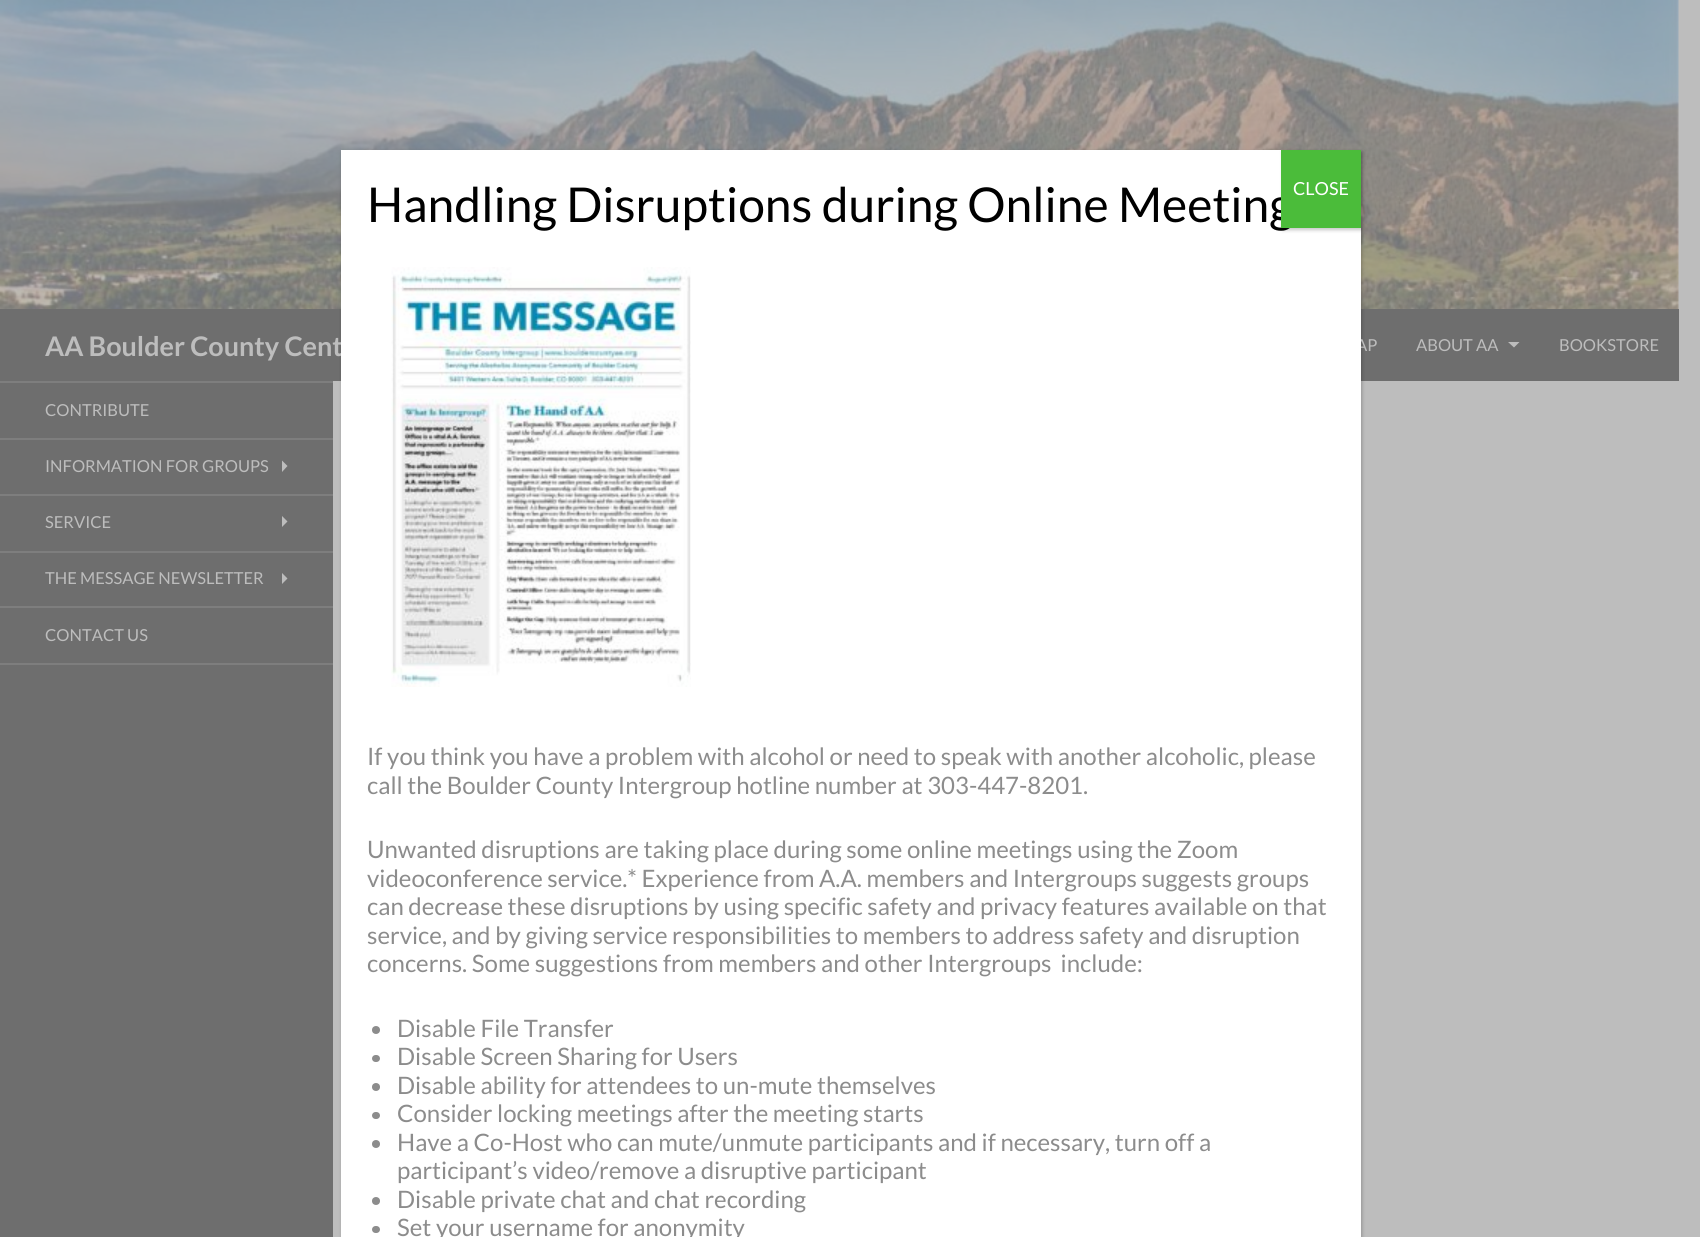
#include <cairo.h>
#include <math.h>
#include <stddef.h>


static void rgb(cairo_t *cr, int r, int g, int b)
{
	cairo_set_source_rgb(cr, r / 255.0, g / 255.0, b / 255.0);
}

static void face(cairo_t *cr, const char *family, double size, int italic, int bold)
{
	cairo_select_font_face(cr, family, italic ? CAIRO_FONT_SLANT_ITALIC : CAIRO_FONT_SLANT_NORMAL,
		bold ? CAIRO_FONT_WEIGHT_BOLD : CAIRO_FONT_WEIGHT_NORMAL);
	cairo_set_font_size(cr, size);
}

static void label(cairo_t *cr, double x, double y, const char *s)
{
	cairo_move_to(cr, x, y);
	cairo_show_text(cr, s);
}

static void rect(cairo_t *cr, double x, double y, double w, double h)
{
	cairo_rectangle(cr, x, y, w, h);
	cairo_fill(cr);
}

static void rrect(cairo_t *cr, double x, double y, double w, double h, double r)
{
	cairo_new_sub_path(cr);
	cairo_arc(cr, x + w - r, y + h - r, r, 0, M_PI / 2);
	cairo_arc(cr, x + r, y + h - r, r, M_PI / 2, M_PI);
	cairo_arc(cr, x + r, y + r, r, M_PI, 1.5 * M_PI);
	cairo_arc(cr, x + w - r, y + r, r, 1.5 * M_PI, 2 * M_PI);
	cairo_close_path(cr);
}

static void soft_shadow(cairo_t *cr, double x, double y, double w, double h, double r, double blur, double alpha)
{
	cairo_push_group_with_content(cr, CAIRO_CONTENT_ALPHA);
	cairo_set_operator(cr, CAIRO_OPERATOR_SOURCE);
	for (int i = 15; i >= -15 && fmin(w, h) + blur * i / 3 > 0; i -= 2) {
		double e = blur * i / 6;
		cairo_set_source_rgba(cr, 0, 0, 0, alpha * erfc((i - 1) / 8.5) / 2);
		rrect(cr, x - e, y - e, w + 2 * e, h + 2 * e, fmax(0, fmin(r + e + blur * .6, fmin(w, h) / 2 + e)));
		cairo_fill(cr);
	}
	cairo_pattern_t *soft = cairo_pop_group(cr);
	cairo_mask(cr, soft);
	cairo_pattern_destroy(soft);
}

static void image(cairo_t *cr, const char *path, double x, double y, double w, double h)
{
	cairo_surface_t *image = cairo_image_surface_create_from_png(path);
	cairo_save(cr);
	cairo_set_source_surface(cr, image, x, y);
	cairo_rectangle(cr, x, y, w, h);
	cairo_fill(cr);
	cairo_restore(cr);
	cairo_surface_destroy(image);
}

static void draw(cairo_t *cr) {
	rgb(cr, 189, 189, 189);
	cairo_paint(cr);
	image(cr, "image1.png", 0, 0, 1679, 309);
	rgb(cr, 110, 110, 110);
	rect(cr, 0, 309, 1679, 72);
	rgb(cr, 2, 2, 2);
	soft_shadow(cr, 342, 152, 1020, 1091, 0, 2, 0.23);
	face(cr, "Lato", 27, 0, 1);
	rgb(cr, 189, 189, 189);
	label(cr, 45, 356, "AA Boulder County Cent");
	face(cr, "Lato", 16.5, 0, 0);
	label(cr, 1356, 351, "AP");
	rgb(cr, 255, 255, 255);
	rect(cr, 341, 150, 1020, 1087);
	face(cr, "Lato", 48, 0, 0);
	rgb(cr, 0, 0, 0);
	label(cr, 367, 222, "Handling Disruptions during Online Meeting");
	rgb(cr, 2, 2, 2);
	soft_shadow(cr, 1283, 152, 79, 78, 0, 2, 0.23);
	rgb(cr, 75, 188, 58);
	rect(cr, 1281, 150, 80, 78);
	face(cr, "Lato", 18, 0, 0);
	rgb(cr, 255, 255, 255);
	label(cr, 1293, 195, "CLOSE");
	image(cr, "image0.png", 391, 267, 300, 420);
	face(cr, "Lato", 24, 0, 0);
	rgb(cr, 140, 140, 140);
	label(cr, 367, 765, "If you think you have a problem with alcohol or need to speak with another alcoholic, please");
	label(cr, 367, 794, "call the Boulder County Intergroup hotline number at 303-447-8201.");
	label(cr, 367, 858, "Unwanted disruptions are taking place during some online meetings using the Zoom");
	label(cr, 367, 887, "videoconference service.* Experience from A.A. members and Intergroups suggests groups");
	label(cr, 367, 915, "can decrease these disruptions by using specific safety and privacy features available on that");
	label(cr, 367, 944, "service, and by giving service responsibilities to members to address safety and disruption");
	label(cr, 367, 972, "concerns. Some suggestions from members and other Intergroups  include:");
	cairo_new_path(cr);
	cairo_arc(cr, 376, 1030, 4, 0, 2 * M_PI);
	cairo_fill(cr);
	label(cr, 397, 1037, "Disable File Transfer");
	rrect(cr, 372, 1055, 8, 7, 3.5);
	cairo_fill(cr);
	label(cr, 397, 1065, "Disable Screen Sharing for Users");
	cairo_new_path(cr);
	cairo_arc(cr, 376, 1087, 4, 0, 2 * M_PI);
	cairo_fill(cr);
	label(cr, 397, 1094, "Disable ability for attendees to un-mute themselves");
	rrect(cr, 372, 1112, 8, 7, 3.5);
	cairo_fill(cr);
	label(cr, 397, 1122, "Consider locking meetings after the meeting starts");
	cairo_new_path(cr);
	cairo_arc(cr, 376, 1144, 4, 0, 2 * M_PI);
	cairo_fill(cr);
	label(cr, 397, 1151, "Have a Co-Host who can mute/unmute participants and if necessary, turn off a");
	label(cr, 397, 1179, "participant’s video/remove a disruptive participant");
	cairo_new_path(cr);
	cairo_arc(cr, 376, 1201, 4, 0, 2 * M_PI);
	cairo_fill(cr);
	label(cr, 397, 1208, "Disable private chat and chat recording");
	rrect(cr, 372, 1226, 8, 7, 3.5);
	cairo_fill(cr);
	label(cr, 397, 1236, "Set your username for anonymity");
	face(cr, "Lato", 16.5, 0, 0);
	rgb(cr, 189, 189, 189);
	label(cr, 1416, 351, "ABOUT AA");
	cairo_new_path(cr);
	cairo_move_to(cr, 1508, 342);
	cairo_line_to(cr, 1514, 347.5);
	cairo_line_to(cr, 1519.5, 342);
	cairo_close_path(cr);
	cairo_fill(cr);
	label(cr, 1559, 351, "BOOKSTORE");
	rgb(cr, 110, 110, 110);
	rect(cr, 0, 383, 333, 854);
	rgb(cr, 126, 126, 126);
	rect(cr, 0, 663, 333, 2);
	rect(cr, 0, 381, 333, 2);
	rgb(cr, 189, 189, 189);
	label(cr, 45, 416, "CONTRIBUTE");
	rgb(cr, 126, 126, 126);
	rect(cr, 0, 438, 333, 2);
	rgb(cr, 189, 189, 189);
	label(cr, 45, 472, "INFORMATION FOR GROUPS");
	cairo_new_path(cr);
	cairo_move_to(cr, 282, 472);
	cairo_line_to(cr, 287.5, 466);
	cairo_line_to(cr, 282, 460.5);
	cairo_close_path(cr);
	cairo_fill(cr);
	rgb(cr, 126, 126, 126);
	rect(cr, 0, 494, 333, 2);
	rgb(cr, 189, 189, 189);
	label(cr, 45, 528, "SERVICE");
	cairo_new_path(cr);
	cairo_move_to(cr, 282, 527);
	cairo_line_to(cr, 287.5, 521.5);
	cairo_line_to(cr, 282, 516);
	cairo_close_path(cr);
	cairo_fill(cr);
	rgb(cr, 126, 126, 126);
	rect(cr, 0, 551, 333, 2);
	rgb(cr, 189, 189, 189);
	label(cr, 45, 584, "THE MESSAGE NEWSLETTER");
	cairo_new_path(cr);
	cairo_move_to(cr, 282, 584);
	cairo_line_to(cr, 287.5, 578.5);
	cairo_line_to(cr, 282, 573);
	cairo_close_path(cr);
	cairo_fill(cr);
	rgb(cr, 126, 126, 126);
	rect(cr, 0, 606, 333, 2);
	rgb(cr, 189, 189, 189);
	label(cr, 45, 641, "CONTACT US");
}

int main(void) {
	cairo_surface_t *surface = cairo_image_surface_create(CAIRO_FORMAT_RGB24, 1700, 1237);
	cairo_t *cr = cairo_create(surface);
	cairo_font_options_t *options = cairo_font_options_create();
	cairo_font_options_set_hint_metrics(options, CAIRO_HINT_METRICS_OFF);
	cairo_font_options_set_hint_style(options, CAIRO_HINT_STYLE_NONE);
	cairo_set_font_options(cr, options);
	cairo_set_miter_limit(cr, 4);
	draw(cr);
	cairo_surface_write_to_png(surface, "render.png");
	cairo_font_options_destroy(options);
	cairo_destroy(cr);
	cairo_surface_destroy(surface);
	return 0;
}
